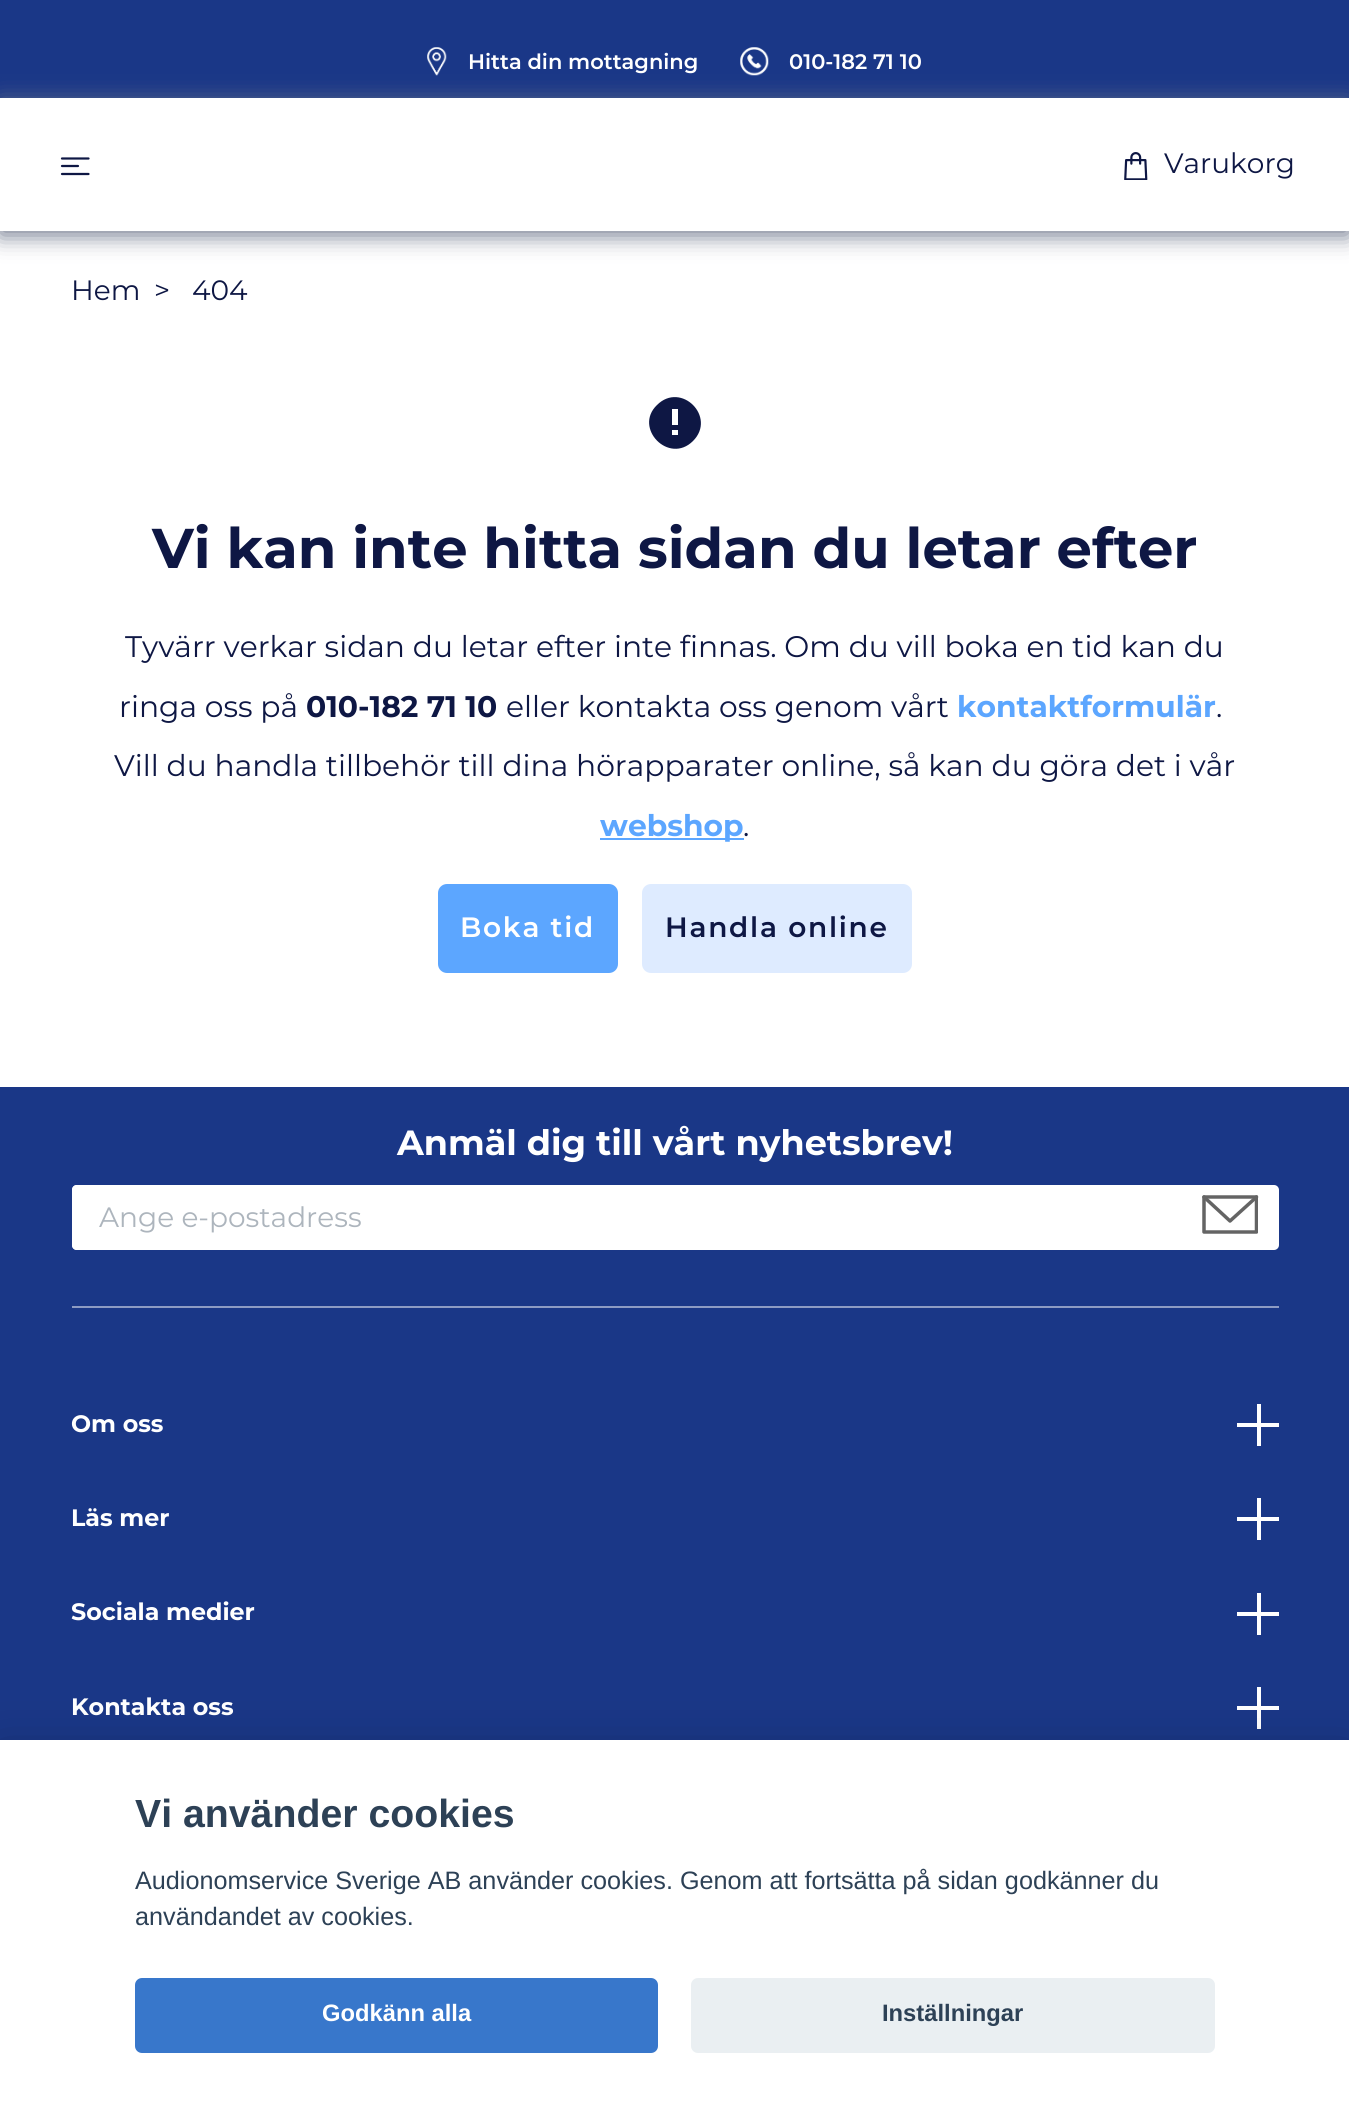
#include <cairo.h>
#include <math.h>
#include <stddef.h>


static void rgb(cairo_t *cr, int r, int g, int b)
{
	cairo_set_source_rgb(cr, r / 255.0, g / 255.0, b / 255.0);
}

static void face(cairo_t *cr, const char *family, double size, int italic, int bold)
{
	cairo_select_font_face(cr, family, italic ? CAIRO_FONT_SLANT_ITALIC : CAIRO_FONT_SLANT_NORMAL,
		bold ? CAIRO_FONT_WEIGHT_BOLD : CAIRO_FONT_WEIGHT_NORMAL);
	cairo_set_font_size(cr, size);
}

static void label(cairo_t *cr, double x, double y, const char *s)
{
	cairo_move_to(cr, x, y);
	cairo_show_text(cr, s);
}

static void tracked(cairo_t *cr, double x, double y, const char *s, double letter, double word)
{
	cairo_move_to(cr, x, y);
	while (*s) {
		char ch[5] = {0};
		int n = 0;
		do ch[n++] = *s++; while ((*s & 0xC0) == 0x80);
		cairo_show_text(cr, ch);
		cairo_rel_move_to(cr, letter + word * (*ch == ' '), 0);
	}
}

static void rect(cairo_t *cr, double x, double y, double w, double h)
{
	cairo_rectangle(cr, x, y, w, h);
	cairo_fill(cr);
}

static void rrect(cairo_t *cr, double x, double y, double w, double h, double r)
{
	cairo_new_sub_path(cr);
	cairo_arc(cr, x + w - r, y + h - r, r, 0, M_PI / 2);
	cairo_arc(cr, x + r, y + h - r, r, M_PI / 2, M_PI);
	cairo_arc(cr, x + r, y + r, r, M_PI, 1.5 * M_PI);
	cairo_arc(cr, x + w - r, y + r, r, 1.5 * M_PI, 2 * M_PI);
	cairo_close_path(cr);
}

static void soft_shadow(cairo_t *cr, double x, double y, double w, double h, double r, double blur, double alpha)
{
	cairo_push_group_with_content(cr, CAIRO_CONTENT_ALPHA);
	cairo_set_operator(cr, CAIRO_OPERATOR_SOURCE);
	for (int i = 15; i >= -15 && fmin(w, h) + blur * i / 3 > 0; i -= 2) {
		double e = blur * i / 6;
		cairo_set_source_rgba(cr, 0, 0, 0, alpha * erfc((i - 1) / 8.5) / 2);
		rrect(cr, x - e, y - e, w + 2 * e, h + 2 * e, fmax(0, fmin(r + e + blur * .6, fmin(w, h) / 2 + e)));
		cairo_fill(cr);
	}
	cairo_pattern_t *soft = cairo_pop_group(cr);
	cairo_mask(cr, soft);
	cairo_pattern_destroy(soft);
}

static void image(cairo_t *cr, const char *path, double x, double y, double w, double h)
{
	cairo_surface_t *image = cairo_image_surface_create_from_png(path);
	cairo_save(cr);
	cairo_set_source_surface(cr, image, x, y);
	cairo_rectangle(cr, x, y, w, h);
	cairo_fill(cr);
	cairo_restore(cr);
	cairo_surface_destroy(image);
}

static void draw(cairo_t *cr) {
	rgb(cr, 255, 255, 255);
	cairo_paint(cr);
	rgb(cr, 26, 55, 135);
	rect(cr, 0, 0, 1349, 98);
	image(cr, "image0.png", 427, 47, 20, 29);
	face(cr, "Montserrat SemiBold", 21, 0, 0);
	rgb(cr, 255, 255, 255);
	label(cr, 468, 69, "Hitta din mottagning");
	image(cr, "image1.png", 740, 47, 29, 29);
	label(cr, 789, 69, "010-182 71 10");
	cairo_save(cr);
	cairo_set_fill_rule(cr, CAIRO_FILL_RULE_EVEN_ODD);
	cairo_new_path(cr);
	cairo_move_to(cr, 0, 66);
	cairo_line_to(cr, 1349, 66);
	cairo_line_to(cr, 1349, 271);
	cairo_line_to(cr, 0, 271);
	cairo_close_path(cr);
	cairo_move_to(cr, 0, 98);
	cairo_line_to(cr, 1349, 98);
	cairo_line_to(cr, 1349, 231);
	cairo_line_to(cr, 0, 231);
	cairo_close_path(cr);
	cairo_clip(cr);
	rgb(cr, 107, 116, 137);
	soft_shadow(cr, 0, 102, 1349, 133, 0, 11.5, 1);
	cairo_restore(cr);
	cairo_new_path(cr);
	cairo_move_to(cr, 62, 158.5);
	cairo_line_to(cr, 88.5, 158.5);
	cairo_move_to(cr, 62, 166);
	cairo_line_to(cr, 78, 166);
	cairo_move_to(cr, 62, 174);
	cairo_line_to(cr, 88.5, 174);
	rgb(cr, 14, 23, 68);
	cairo_set_line_width(cr, 2.2);
	cairo_set_line_cap(cr, CAIRO_LINE_CAP_ROUND);
	cairo_set_line_join(cr, CAIRO_LINE_JOIN_ROUND);
	cairo_stroke(cr);
	image(cr, "image2.png", 1124, 152, 24, 28);
	face(cr, "Montserrat", 28, 0, 0);
	label(cr, 1164, 173, "Varukorg");
	label(cr, 71, 300, "Hem");
	label(cr, 154, 300, ">");
	label(cr, 192, 300, "404");
	cairo_new_path(cr);
	cairo_move_to(cr, 657, 405);
	cairo_curve_to(cr, 681, 381, 717, 417, 693, 441);
	cairo_curve_to(cr, 669, 465, 633, 428, 657, 405);
	cairo_close_path(cr);
	cairo_move_to(cr, 678, 435);
	cairo_line_to(cr, 678, 430);
	cairo_line_to(cr, 672, 430);
	cairo_line_to(cr, 672, 435);
	cairo_close_path(cr);
	cairo_move_to(cr, 678, 425);
	cairo_line_to(cr, 678, 409);
	cairo_line_to(cr, 672, 409);
	cairo_line_to(cr, 672, 425);
	cairo_close_path(cr);
	cairo_fill(cr);
	face(cr, "Montserrat", 56, 0, 1);
	label(cr, 152, 568, "Vi kan inte hitta sidan du letar efter");
	face(cr, "Montserrat", 29.75, 0, 0);
	label(cr, 125, 657, "Tyvärr verkar sidan du letar efter inte finnas. Om du vill boka en tid kan du");
	label(cr, 119, 717, "ringa oss på");
	face(cr, "Montserrat", 29.75, 0, 1);
	label(cr, 306, 717, "010-182 71 10");
	face(cr, "Montserrat", 29.75, 0, 0);
	label(cr, 506, 717, "eller kontakta oss genom vårt");
	face(cr, "Montserrat", 29.75, 0, 1);
	rgb(cr, 92, 166, 255);
	label(cr, 957, 717, "kontaktformulär");
	face(cr, "Montserrat", 29.75, 0, 0);
	rgb(cr, 14, 23, 68);
	label(cr, 1216, 717, ".");
	label(cr, 114, 776, "Vill du handla tillbehör till dina hörapparater online, så kan du göra det i vår");
	rgb(cr, 92, 166, 255);
	rect(cr, 600, 838, 144, 2);
	face(cr, "Montserrat", 29.75, 0, 1);
	label(cr, 600, 836, "webshop");
	face(cr, "Montserrat", 29.75, 0, 0);
	rgb(cr, 14, 23, 68);
	label(cr, 743, 836, ".");
	rgb(cr, 92, 166, 255);
	rrect(cr, 439, 885, 178, 87, 8);
	cairo_fill_preserve(cr);
	cairo_set_line_width(cr, 2);
	cairo_set_line_cap(cr, CAIRO_LINE_CAP_BUTT);
	cairo_set_line_join(cr, CAIRO_LINE_JOIN_MITER);
	cairo_stroke(cr);
	face(cr, "Montserrat SemiBold", 28, 0, 0);
	rgb(cr, 255, 255, 255);
	tracked(cr, 460, 937, "Boka tid", 1.75, 0);
	rgb(cr, 222, 235, 255);
	rrect(cr, 643, 885, 268, 87, 8);
	cairo_fill_preserve(cr);
	cairo_stroke(cr);
	rgb(cr, 14, 23, 68);
	tracked(cr, 665, 937, "Handla online", 1.75, 0);
	rgb(cr, 26, 55, 135);
	rect(cr, 0, 1087, 1349, 653);
	face(cr, "Montserrat", 35, 0, 1);
	rgb(cr, 255, 255, 255);
	label(cr, 397, 1155, "Anmäl dig till vårt nyhetsbrev!");
	rrect(cr, 72, 1185, 1207, 65, 5);
	cairo_fill(cr);
	cairo_new_path(cr);
	cairo_move_to(cr, 77, 1185);
	cairo_line_to(cr, 1181, 1185);
	cairo_line_to(cr, 1181, 1250);
	cairo_line_to(cr, 77, 1250);
	cairo_curve_to(cr, 74, 1250, 72, 1248, 72, 1245);
	cairo_line_to(cr, 72, 1190);
	cairo_curve_to(cr, 72, 1187, 74, 1185, 77, 1185);
	cairo_close_path(cr);
	cairo_fill(cr);
	face(cr, "Montserrat", 28, 0, 0);
	rgb(cr, 173, 181, 189);
	label(cr, 99, 1227, "Ange e-postadress");
	cairo_new_path(cr);
	cairo_move_to(cr, 1204, 1197);
	cairo_line_to(cr, 1230, 1221);
	cairo_line_to(cr, 1256.5, 1197);
	rgb(cr, 100, 100, 100);
	cairo_set_line_width(cr, 3.5);
	cairo_set_line_cap(cr, CAIRO_LINE_CAP_ROUND);
	cairo_set_line_join(cr, CAIRO_LINE_JOIN_ROUND);
	cairo_stroke(cr);
	cairo_save(cr);
	cairo_rectangle(cr, 1202, 1187, 56, 56);
	cairo_clip(cr);
	cairo_new_path(cr);
	cairo_move_to(cr, 1204, 1197);
	cairo_line_to(cr, 1256.5, 1197);
	cairo_line_to(cr, 1256.5, 1232);
	cairo_line_to(cr, 1204, 1232);
	cairo_close_path(cr);
	cairo_stroke(cr);
	cairo_restore(cr);
	rgb(cr, 141, 155, 195);
	rect(cr, 72, 1306, 1207, 2);
	face(cr, "Montserrat", 23.75, 0, 1);
	rgb(cr, 255, 255, 255);
	label(cr, 71, 1432, "Om oss");
	rect(cr, 1257, 1404, 4, 42);
	rect(cr, 1237, 1423, 42, 4);
	label(cr, 71, 1526, "Läs mer");
	rect(cr, 1257, 1498, 4, 42);
	rect(cr, 1237, 1517, 42, 4);
	label(cr, 71, 1620, "Sociala medier");
	rect(cr, 1257, 1593, 4, 42);
	rect(cr, 1237, 1612, 42, 4);
	label(cr, 71, 1715, "Kontakta oss");
	rect(cr, 1257, 1687, 4, 42);
	rect(cr, 1237, 1706, 42, 4);
	rgb(cr, 2, 2, 3);
	soft_shadow(cr, 0, 1757, 1349, 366, 0, 26, 0.28);
	rgb(cr, 255, 255, 255);
	rect(cr, 0, 1740, 1349, 365);
	face(cr, "Liberation Sans", 39.25, 0, 1);
	rgb(cr, 45, 65, 86);
	label(cr, 135, 1827, "Vi använder cookies");
	face(cr, "Liberation Sans", 25.2, 0, 0);
	label(cr, 135, 1889, "Audionomservice Sverige AB använder cookies. Genom att fortsätta på sidan godkänner du");
	label(cr, 135, 1925, "användandet av cookies.");
	rgb(cr, 56, 119, 203);
	rrect(cr, 135, 1978, 523, 75, 7);
	cairo_fill(cr);
	face(cr, "Liberation Sans", 23.75, 0, 1);
	rgb(cr, 255, 255, 255);
	label(cr, 322, 2021, "Godkänn alla");
	rgb(cr, 234, 239, 242);
	rrect(cr, 691, 1978, 524, 75, 7);
	cairo_fill(cr);
	rgb(cr, 45, 65, 86);
	label(cr, 882, 2021, "Inställningar");
}

int main(void) {
	cairo_surface_t *surface = cairo_image_surface_create(CAIRO_FORMAT_RGB24, 1349, 2105);
	cairo_t *cr = cairo_create(surface);
	cairo_font_options_t *options = cairo_font_options_create();
	cairo_font_options_set_hint_metrics(options, CAIRO_HINT_METRICS_OFF);
	cairo_font_options_set_hint_style(options, CAIRO_HINT_STYLE_NONE);
	cairo_set_font_options(cr, options);
	cairo_set_miter_limit(cr, 4);
	draw(cr);
	cairo_surface_write_to_png(surface, "render.png");
	cairo_font_options_destroy(options);
	cairo_destroy(cr);
	cairo_surface_destroy(surface);
	return 0;
}
